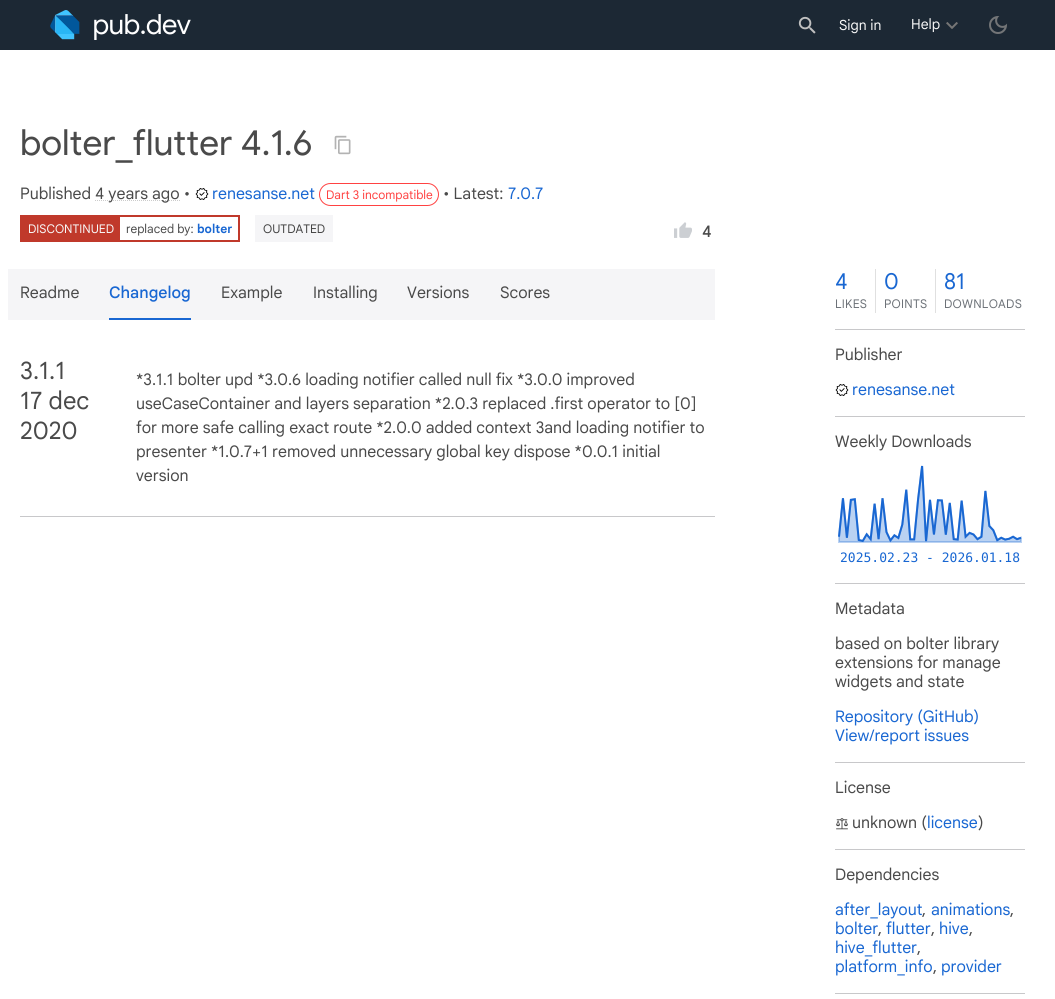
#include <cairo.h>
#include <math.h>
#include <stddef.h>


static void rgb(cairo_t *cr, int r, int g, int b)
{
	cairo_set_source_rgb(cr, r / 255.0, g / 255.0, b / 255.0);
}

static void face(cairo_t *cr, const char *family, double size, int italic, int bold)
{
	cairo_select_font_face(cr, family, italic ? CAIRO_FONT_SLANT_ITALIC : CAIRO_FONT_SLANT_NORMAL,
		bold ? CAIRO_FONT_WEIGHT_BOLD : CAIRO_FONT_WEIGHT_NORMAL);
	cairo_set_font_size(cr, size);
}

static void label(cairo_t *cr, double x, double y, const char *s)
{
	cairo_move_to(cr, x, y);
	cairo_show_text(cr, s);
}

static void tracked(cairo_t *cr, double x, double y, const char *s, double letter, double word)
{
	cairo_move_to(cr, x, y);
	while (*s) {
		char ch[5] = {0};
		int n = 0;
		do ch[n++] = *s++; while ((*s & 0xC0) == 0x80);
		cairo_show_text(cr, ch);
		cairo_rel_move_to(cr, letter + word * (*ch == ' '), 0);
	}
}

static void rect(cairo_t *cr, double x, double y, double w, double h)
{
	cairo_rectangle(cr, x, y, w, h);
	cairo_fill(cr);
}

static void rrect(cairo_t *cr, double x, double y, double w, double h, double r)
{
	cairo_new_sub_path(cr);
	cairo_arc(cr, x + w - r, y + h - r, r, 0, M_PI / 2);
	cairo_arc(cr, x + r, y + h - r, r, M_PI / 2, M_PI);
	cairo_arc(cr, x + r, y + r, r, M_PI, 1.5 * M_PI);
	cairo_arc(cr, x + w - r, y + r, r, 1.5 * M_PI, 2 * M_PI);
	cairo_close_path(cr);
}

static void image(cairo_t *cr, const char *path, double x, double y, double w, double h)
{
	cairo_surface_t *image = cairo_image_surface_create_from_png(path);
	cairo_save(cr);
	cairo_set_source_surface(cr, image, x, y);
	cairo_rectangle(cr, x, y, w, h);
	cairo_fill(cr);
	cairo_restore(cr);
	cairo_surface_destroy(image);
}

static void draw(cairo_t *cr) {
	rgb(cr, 255, 255, 255);
	cairo_paint(cr);
	rgb(cr, 28, 40, 52);
	rect(cr, 0, 0, 1055, 50);
	image(cr, "image0.png", 50, 10, 141, 30);
	image(cr, "image1.png", 798, 16, 18, 18);
	face(cr, "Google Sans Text", 14, 0, 0);
	rgb(cr, 248, 248, 248);
	label(cr, 839, 30, "Sign in");
	label(cr, 911, 29, "Help");
	image(cr, "image2.png", 946, 22, 12, 7);
	image(cr, "image3.png", 989, 16, 18, 18);
	face(cr, "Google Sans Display", 36, 0, 0);
	rgb(cr, 74, 74, 74);
	label(cr, 20, 155, "bolter_flutter 4.1.6");
	image(cr, "image4.png", 334, 135, 17, 20);
	face(cr, "Google Sans Text", 16, 0, 0);
	label(cr, 20, 199, "Published");
	cairo_new_path(cr);
	cairo_move_to(cr, 95, 200.5);
	cairo_line_to(cr, 180, 200.5);
	rgb(cr, 204, 204, 204);
	cairo_set_line_width(cr, 1);
	cairo_set_dash(cr, (double[]){1, 1}, 2, 0);
	cairo_stroke(cr);
	rgb(cr, 74, 74, 74);
	label(cr, 95, 199, "4 years ago •");
	image(cr, "image5.png", 195, 188, 14, 12);
	rgb(cr, 25, 103, 210);
	label(cr, 212, 199, "renesanse.net");
	rrect(cr, 319.5, 183.5, 119, 22, 11);
	rgb(cr, 255, 66, 66);
	cairo_set_dash(cr, NULL, 0, 0);
	cairo_stroke(cr);
	face(cr, "Google Sans Text", 12, 0, 0);
	label(cr, 326, 199, "Dart 3 incompatible");
	face(cr, "Google Sans Text", 16, 0, 0);
	rgb(cr, 74, 74, 74);
	label(cr, 443, 199, "• Latest:");
	rgb(cr, 25, 103, 210);
	label(cr, 508, 199, "7.0.7");
	rgb(cr, 192, 57, 43);
	rect(cr, 20, 215, 220, 27);
	face(cr, "Google Sans Text", 12, 0, 0);
	rgb(cr, 248, 248, 248);
	label(cr, 28, 233, "DISCONTINUED");
	rgb(cr, 255, 255, 255);
	rect(cr, 120, 217, 118, 23);
	rgb(cr, 74, 74, 74);
	label(cr, 126, 233, "replaced by:");
	face(cr, "Google Sans Text", 12, 0, 1);
	rgb(cr, 25, 103, 210);
	label(cr, 197, 233, "bolter");
	rgb(cr, 245, 245, 247);
	rect(cr, 255, 215, 78, 27);
	face(cr, "Google Sans Text", 12, 0, 0);
	rgb(cr, 68, 68, 68);
	label(cr, 263, 233, "OUTDATED");
	image(cr, "image6.png", 674, 222, 18, 16);
	face(cr, "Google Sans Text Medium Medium", 16, 0, 0);
	rgb(cr, 74, 74, 74);
	label(cr, 702, 237, "4");
	rgb(cr, 245, 245, 247);
	rect(cr, 8, 269, 707, 51);
	face(cr, "Google Sans Text", 16, 0, 0);
	rgb(cr, 74, 74, 74);
	label(cr, 20, 298, "Readme");
	rgb(cr, 25, 103, 210);
	rect(cr, 109, 318, 82, 2);
	face(cr, "Google Sans Text Medium Medium", 16, 0, 0);
	label(cr, 109, 298, "Changelog");
	face(cr, "Google Sans Text", 16, 0, 0);
	rgb(cr, 74, 74, 74);
	label(cr, 221, 298, "Example");
	label(cr, 313, 298, "Installing");
	label(cr, 407, 298, "Versions");
	label(cr, 500, 298, "Scores");
	rgb(cr, 200, 200, 202);
	rect(cr, 20, 516, 695, 1);
	face(cr, "Google Sans Text", 24, 0, 0);
	rgb(cr, 74, 74, 74);
	label(cr, 20, 379, "3.1.1");
	label(cr, 20, 409, "17 dec");
	label(cr, 20, 439, "2020");
	face(cr, "Google Sans Text", 16, 0, 0);
	label(cr, 136, 385, "*3.1.1 bolter upd *3.0.6 loading notifier called null fix *3.0.0 improved");
	label(cr, 136, 409, "useCaseContainer and layers separation *2.0.3 replaced .first operator to [0]");
	label(cr, 136, 433, "for more safe calling exact route *2.0.0 added context 3and loading notifier to");
	label(cr, 136, 457, "presenter *1.0.7+1 removed unnecessary global key dispose *0.0.1 initial");
	label(cr, 136, 481, "version");
	rgb(cr, 224, 224, 224);
	rect(cr, 875, 269, 1, 44);
	face(cr, "Google Sans Text", 22, 0, 0);
	rgb(cr, 25, 103, 210);
	label(cr, 835, 289, "4");
	face(cr, "Google Sans Text", 12, 0, 0);
	rgb(cr, 109, 114, 120);
	tracked(cr, 835, 308, "LIKES", 0.25, 0);
	rgb(cr, 224, 224, 224);
	rect(cr, 935, 269, 1, 44);
	face(cr, "Google Sans Text", 22, 0, 0);
	rgb(cr, 25, 103, 210);
	label(cr, 884, 289, "0");
	face(cr, "Google Sans Text", 12, 0, 0);
	rgb(cr, 109, 114, 120);
	tracked(cr, 884, 308, "POINTS", 0.25, 0);
	face(cr, "Google Sans Text", 22, 0, 0);
	rgb(cr, 25, 103, 210);
	label(cr, 944, 289, "81");
	face(cr, "Google Sans Text", 12, 0, 0);
	rgb(cr, 109, 114, 120);
	tracked(cr, 944, 308, "DOWNLOADS", 0.25, 0);
	rgb(cr, 200, 200, 202);
	rect(cr, 835, 329, 190, 1);
	face(cr, "Google Sans Text", 16, 0, 0);
	rgb(cr, 74, 74, 74);
	label(cr, 835, 360, "Publisher");
	image(cr, "image5.png", 835, 384, 14, 12);
	rgb(cr, 25, 103, 210);
	label(cr, 852, 395, "renesanse.net");
	rgb(cr, 200, 200, 202);
	rect(cr, 835, 416, 190, 1);
	rgb(cr, 74, 74, 74);
	label(cr, 835, 447, "Weekly Downloads");
	image(cr, "image7.png", 838, 465, 184, 78);
	face(cr, "DejaVu Sans Mono", 13, 0, 0);
	rgb(cr, 25, 103, 210);
	label(cr, 840, 562, "2025.02.23 - 2026.01.18");
	rgb(cr, 200, 200, 202);
	rect(cr, 835, 583, 190, 1);
	face(cr, "Google Sans Text", 16, 0, 0);
	rgb(cr, 74, 74, 74);
	label(cr, 835, 614, "Metadata");
	label(cr, 835, 649, "based on bolter library");
	label(cr, 835, 668, "extensions for manage");
	label(cr, 835, 687, "widgets and state");
	rgb(cr, 25, 103, 210);
	label(cr, 835, 722, "Repository (GitHub)");
	label(cr, 835, 741, "View/report issues");
	rgb(cr, 200, 200, 202);
	rect(cr, 835, 762, 190, 1);
	rgb(cr, 74, 74, 74);
	label(cr, 835, 793, "License");
	image(cr, "image8.png", 836, 818, 12, 12);
	label(cr, 852, 828, "unknown (");
	rgb(cr, 25, 103, 210);
	label(cr, 927, 828, "license");
	rgb(cr, 74, 74, 74);
	label(cr, 978, 828, ")");
	rgb(cr, 200, 200, 202);
	rect(cr, 835, 849, 190, 1);
	rgb(cr, 74, 74, 74);
	label(cr, 835, 880, "Dependencies");
	rgb(cr, 25, 103, 210);
	label(cr, 835, 915, "after_layout");
	rgb(cr, 74, 74, 74);
	label(cr, 922, 915, ",");
	rgb(cr, 25, 103, 210);
	label(cr, 931, 915, "animations");
	rgb(cr, 74, 74, 74);
	label(cr, 1010, 915, ",");
	rgb(cr, 25, 103, 210);
	label(cr, 835, 934, "bolter");
	rgb(cr, 74, 74, 74);
	label(cr, 878, 934, ",");
	rgb(cr, 25, 103, 210);
	label(cr, 886, 934, "flutter");
	rgb(cr, 74, 74, 74);
	label(cr, 931, 934, ",");
	rgb(cr, 25, 103, 210);
	label(cr, 939, 934, "hive");
	rgb(cr, 74, 74, 74);
	label(cr, 969, 934, ",");
	rgb(cr, 25, 103, 210);
	label(cr, 835, 953, "hive_flutter");
	rgb(cr, 74, 74, 74);
	label(cr, 917, 953, ",");
	rgb(cr, 25, 103, 210);
	label(cr, 835, 972, "platform_info");
	rgb(cr, 74, 74, 74);
	label(cr, 933, 972, ",");
	rgb(cr, 25, 103, 210);
	label(cr, 941, 972, "provider");
	rgb(cr, 200, 200, 202);
	rect(cr, 835, 993, 190, 1);
}

int main(void) {
	cairo_surface_t *surface = cairo_image_surface_create(CAIRO_FORMAT_RGB24, 1055, 999);
	cairo_t *cr = cairo_create(surface);
	cairo_font_options_t *options = cairo_font_options_create();
	cairo_font_options_set_hint_metrics(options, CAIRO_HINT_METRICS_OFF);
	cairo_font_options_set_hint_style(options, CAIRO_HINT_STYLE_NONE);
	cairo_set_font_options(cr, options);
	cairo_set_miter_limit(cr, 4);
	draw(cr);
	cairo_surface_write_to_png(surface, "render.png");
	cairo_font_options_destroy(options);
	cairo_destroy(cr);
	cairo_surface_destroy(surface);
	return 0;
}
